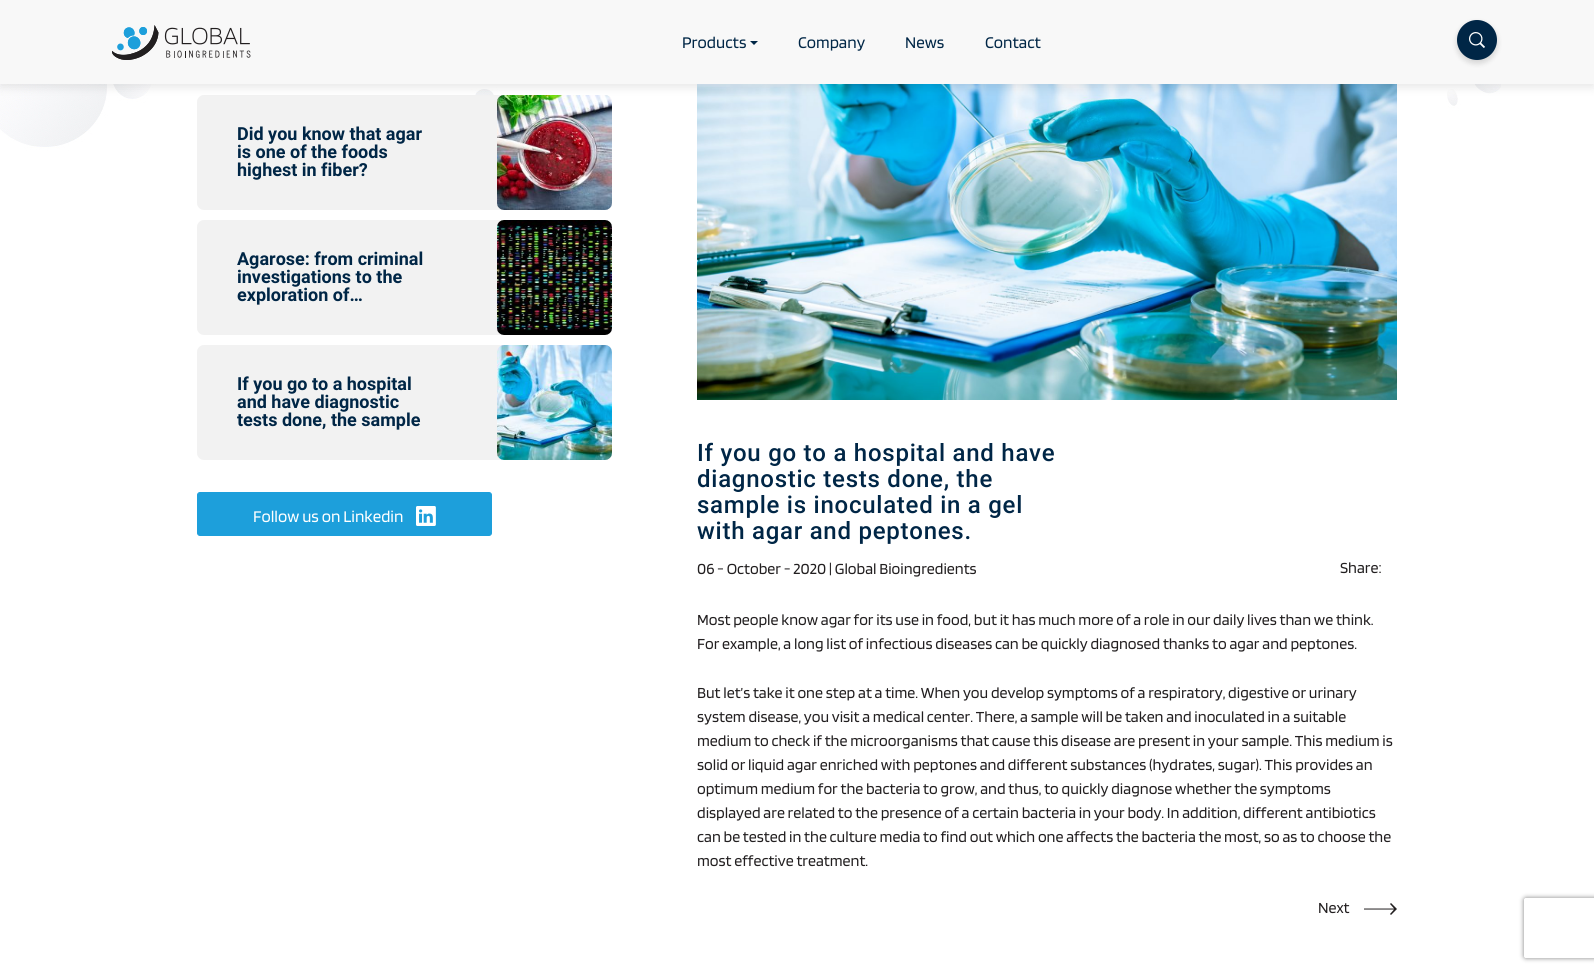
#include <cairo.h>
#include <math.h>
#include <stddef.h>


static void rgb(cairo_t *cr, int r, int g, int b)
{
	cairo_set_source_rgb(cr, r / 255.0, g / 255.0, b / 255.0);
}

static void face(cairo_t *cr, const char *family, double size, int italic, int bold)
{
	cairo_select_font_face(cr, family, italic ? CAIRO_FONT_SLANT_ITALIC : CAIRO_FONT_SLANT_NORMAL,
		bold ? CAIRO_FONT_WEIGHT_BOLD : CAIRO_FONT_WEIGHT_NORMAL);
	cairo_set_font_size(cr, size);
}

static void label(cairo_t *cr, double x, double y, const char *s)
{
	cairo_move_to(cr, x, y);
	cairo_show_text(cr, s);
}

static void tracked(cairo_t *cr, double x, double y, const char *s, double letter, double word)
{
	cairo_move_to(cr, x, y);
	while (*s) {
		char ch[5] = {0};
		int n = 0;
		do ch[n++] = *s++; while ((*s & 0xC0) == 0x80);
		cairo_show_text(cr, ch);
		cairo_rel_move_to(cr, letter + word * (*ch == ' '), 0);
	}
}

static void rect(cairo_t *cr, double x, double y, double w, double h)
{
	cairo_rectangle(cr, x, y, w, h);
	cairo_fill(cr);
}

static void rrect(cairo_t *cr, double x, double y, double w, double h, double r)
{
	cairo_new_sub_path(cr);
	cairo_arc(cr, x + w - r, y + h - r, r, 0, M_PI / 2);
	cairo_arc(cr, x + r, y + h - r, r, M_PI / 2, M_PI);
	cairo_arc(cr, x + r, y + r, r, M_PI, 1.5 * M_PI);
	cairo_arc(cr, x + w - r, y + r, r, 1.5 * M_PI, 2 * M_PI);
	cairo_close_path(cr);
}

static void soft_shadow(cairo_t *cr, double x, double y, double w, double h, double r, double blur, double alpha)
{
	cairo_push_group_with_content(cr, CAIRO_CONTENT_ALPHA);
	cairo_set_operator(cr, CAIRO_OPERATOR_SOURCE);
	for (int i = 15; i >= -15 && fmin(w, h) + blur * i / 3 > 0; i -= 2) {
		double e = blur * i / 6;
		cairo_set_source_rgba(cr, 0, 0, 0, alpha * erfc((i - 1) / 8.5) / 2);
		rrect(cr, x - e, y - e, w + 2 * e, h + 2 * e, fmax(0, fmin(r + e + blur * .6, fmin(w, h) / 2 + e)));
		cairo_fill(cr);
	}
	cairo_pattern_t *soft = cairo_pop_group(cr);
	cairo_mask(cr, soft);
	cairo_pattern_destroy(soft);
}

static void image(cairo_t *cr, const char *path, double x, double y, double w, double h)
{
	cairo_surface_t *image = cairo_image_surface_create_from_png(path);
	cairo_save(cr);
	cairo_set_source_surface(cr, image, x, y);
	cairo_rectangle(cr, x, y, w, h);
	cairo_fill(cr);
	cairo_restore(cr);
	cairo_surface_destroy(image);
}

static void draw(cairo_t *cr) {
	rgb(cr, 255, 255, 255);
	cairo_paint(cr);
	image(cr, "image2.png", 0, 84, 1501, 212);
	rgb(cr, 242, 242, 242);
	rrect(cr, 197, 95, 415, 115, 7);
	cairo_fill(cr);
	image(cr, "image3.png", 497, 95, 115, 115);
	image(cr, "image7.png", 697, 84, 700, 316);
	rgb(cr, 0, 0, 0);
	soft_shadow(cr, 0, 3, 1594, 84, 0, 5, 0.1);
	rgb(cr, 248, 248, 248);
	rect(cr, 0, 0, 1594, 84);
	image(cr, "image0.png", 112, 25, 139, 35);
	face(cr, "Blinker", 17, 0, 0);
	rgb(cr, 0, 38, 70);
	label(cr, 682, 48, "Products");
	cairo_new_path(cr);
	cairo_move_to(cr, 754, 45);
	cairo_line_to(cr, 750, 41);
	cairo_line_to(cr, 758, 41);
	cairo_close_path(cr);
	cairo_fill(cr);
	label(cr, 798, 48, "Company");
	label(cr, 905, 48, "News");
	label(cr, 985, 48, "Contact");
	rgb(cr, 0, 0, 0);
	soft_shadow(cr, 1457, 23, 40, 40, 20, 3, 0.16);
	rgb(cr, 0, 38, 70);
	cairo_arc(cr, 1477, 40, 20, 0, 2 * M_PI);
	cairo_fill(cr);
	image(cr, "image1.png", 1469, 32, 16, 16);
	face(cr, "Roboto", 18, 0, 1);
	label(cr, 237, 140, "Did you know that agar");
	label(cr, 237, 158, "is one of the foods");
	label(cr, 237, 176, "highest in fiber?");
	rgb(cr, 242, 242, 242);
	rrect(cr, 197, 220, 415, 115, 7);
	cairo_fill(cr);
	rgb(cr, 0, 38, 70);
	label(cr, 237, 265, "Agarose: from criminal");
	label(cr, 237, 283, "investigations to the");
	label(cr, 237, 301, "exploration of…");
	image(cr, "image4.png", 497, 220, 115, 115);
	rgb(cr, 242, 242, 242);
	rrect(cr, 197, 345, 415, 115, 7);
	cairo_fill(cr);
	rgb(cr, 0, 38, 70);
	label(cr, 237, 390, "If you go to a hospital");
	label(cr, 237, 408, "and have diagnostic");
	label(cr, 237, 426, "tests done, the sample");
	image(cr, "image5.png", 497, 345, 115, 115);
	rgb(cr, 29, 159, 219);
	rrect(cr, 197.5, 492.5, 294, 43, 2.5);
	cairo_fill_preserve(cr);
	cairo_set_line_width(cr, 1);
	cairo_stroke(cr);
	face(cr, "Blinker", 17, 0, 0);
	rgb(cr, 255, 255, 255);
	label(cr, 253, 522, "Follow us on Linkedin");
	image(cr, "image6.png", 416, 506, 20, 20);
	face(cr, "Roboto Medium", 24, 0, 0);
	rgb(cr, 0, 38, 70);
	tracked(cr, 697, 461, "If you go to a hospital and have", 0.75, 0);
	tracked(cr, 697, 487, "diagnostic tests done, the", 0.75, 0);
	tracked(cr, 697, 513, "sample is inoculated in a gel", 0.75, 0);
	tracked(cr, 697, 539, "with agar and peptones.", 0.75, 0);
	face(cr, "Blinker", 16, 0, 0);
	rgb(cr, 34, 31, 32);
	label(cr, 697, 574, "06 - October - 2020 | Global Bioingredients");
	label(cr, 1340, 573, "Share:");
	label(cr, 697, 625, "Most people know agar for its use in food, but it has much more of a role in our daily lives than we think.");
	label(cr, 697, 649, "For example, a long list of infectious diseases can be quickly diagnosed thanks to agar and peptones.");
	label(cr, 697, 698, "But let’s take it one step at a time. When you develop symptoms of a respiratory, digestive or urinary");
	label(cr, 697, 722, "system disease, you visit a medical center. There, a sample will be taken and inoculated in a suitable");
	label(cr, 697, 746, "medium to check if the microorganisms that cause this disease are present in your sample. This medium is");
	label(cr, 697, 770, "solid or liquid agar enriched with peptones and different substances (hydrates, sugar). This provides an");
	label(cr, 697, 794, "optimum medium for the bacteria to grow, and thus, to quickly diagnose whether the symptoms");
	label(cr, 697, 818, "displayed are related to the presence of a certain bacteria in your body. In addition, different antibiotics");
	label(cr, 697, 842, "can be tested in the culture media to find out which one affects the bacteria the most, so as to choose the");
	label(cr, 697, 866, "most effective treatment.");
	label(cr, 1318, 913, "Next");
	cairo_new_path(cr);
	cairo_move_to(cr, 1391, 903);
	cairo_line_to(cr, 1390, 904);
	cairo_line_to(cr, 1394, 908.5);
	cairo_line_to(cr, 1364, 908.5);
	cairo_line_to(cr, 1364, 909.5);
	cairo_line_to(cr, 1394, 909.5);
	cairo_line_to(cr, 1390, 914);
	cairo_line_to(cr, 1391, 915);
	cairo_line_to(cr, 1397, 909);
	cairo_close_path(cr);
	cairo_fill(cr);
	cairo_save(cr);
	cairo_set_fill_rule(cr, CAIRO_FILL_RULE_EVEN_ODD);
	cairo_new_path(cr);
	cairo_move_to(cr, 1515, 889);
	cairo_line_to(cr, 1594, 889);
	cairo_line_to(cr, 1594, 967);
	cairo_line_to(cr, 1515, 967);
	cairo_close_path(cr);
	cairo_move_to(cr, 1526, 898);
	cairo_line_to(cr, 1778, 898);
	cairo_curve_to(cr, 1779, 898, 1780, 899, 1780, 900);
	cairo_line_to(cr, 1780, 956);
	cairo_curve_to(cr, 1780, 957, 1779, 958, 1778, 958);
	cairo_line_to(cr, 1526, 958);
	cairo_curve_to(cr, 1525, 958, 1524, 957, 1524, 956);
	cairo_line_to(cr, 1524, 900);
	cairo_curve_to(cr, 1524, 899, 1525, 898, 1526, 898);
	cairo_close_path(cr);
	cairo_clip(cr);
	rgb(cr, 128, 128, 128);
	soft_shadow(cr, 1524, 898, 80, 60, 2, 2.5, 1);
	cairo_restore(cr);
}

int main(void) {
	cairo_surface_t *surface = cairo_image_surface_create(CAIRO_FORMAT_RGB24, 1594, 972);
	cairo_t *cr = cairo_create(surface);
	cairo_font_options_t *options = cairo_font_options_create();
	cairo_font_options_set_hint_metrics(options, CAIRO_HINT_METRICS_OFF);
	cairo_font_options_set_hint_style(options, CAIRO_HINT_STYLE_NONE);
	cairo_set_font_options(cr, options);
	cairo_set_miter_limit(cr, 4);
	draw(cr);
	cairo_surface_write_to_png(surface, "render.png");
	cairo_font_options_destroy(options);
	cairo_destroy(cr);
	cairo_surface_destroy(surface);
	return 0;
}
